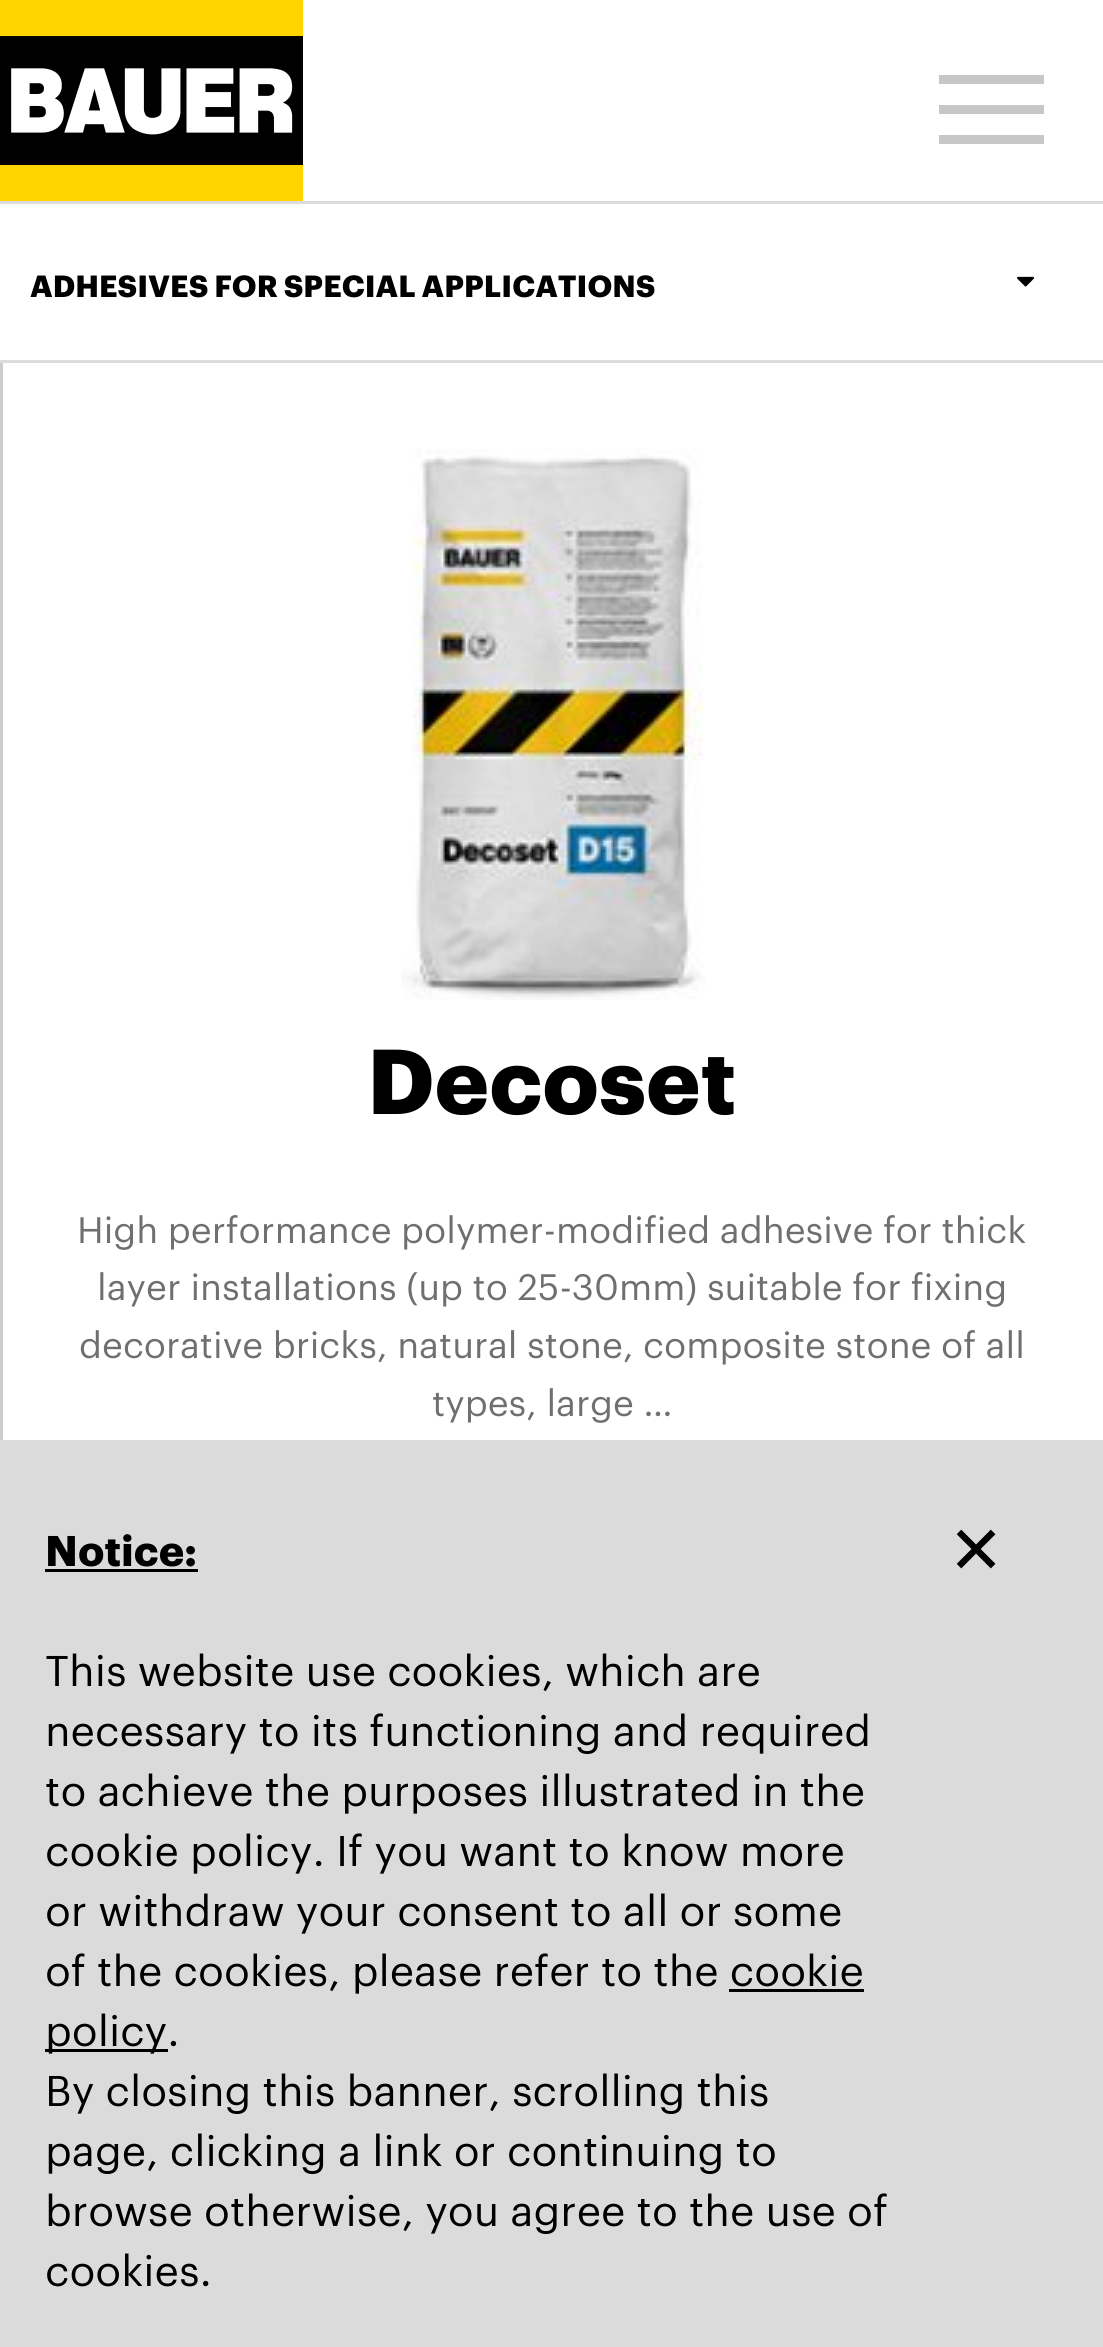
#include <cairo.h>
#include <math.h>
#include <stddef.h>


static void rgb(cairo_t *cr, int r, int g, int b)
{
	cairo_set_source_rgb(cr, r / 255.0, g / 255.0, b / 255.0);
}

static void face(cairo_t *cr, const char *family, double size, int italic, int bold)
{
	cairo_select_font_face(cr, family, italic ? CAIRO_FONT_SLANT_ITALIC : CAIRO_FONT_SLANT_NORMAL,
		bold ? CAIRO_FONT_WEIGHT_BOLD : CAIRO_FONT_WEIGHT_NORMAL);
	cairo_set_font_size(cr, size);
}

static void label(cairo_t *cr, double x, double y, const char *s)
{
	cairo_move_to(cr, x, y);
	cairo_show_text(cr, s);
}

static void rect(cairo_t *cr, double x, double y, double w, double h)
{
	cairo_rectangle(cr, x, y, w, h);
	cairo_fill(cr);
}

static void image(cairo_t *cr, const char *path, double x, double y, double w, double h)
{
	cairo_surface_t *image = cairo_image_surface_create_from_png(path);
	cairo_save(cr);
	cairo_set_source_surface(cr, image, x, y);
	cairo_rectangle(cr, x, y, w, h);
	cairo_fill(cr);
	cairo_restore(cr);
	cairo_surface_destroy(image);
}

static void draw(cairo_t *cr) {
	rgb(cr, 255, 255, 255);
	cairo_paint(cr);
	rgb(cr, 219, 219, 219);
	rect(cr, 0, 201, 1103, 3);
	image(cr, "image0.png", 0, 0, 303, 201);
	rgb(cr, 199, 199, 199);
	rect(cr, 939, 75, 105, 9);
	rect(cr, 939, 105, 105, 9);
	rect(cr, 939, 135, 105, 9);
	rgb(cr, 219, 219, 219);
	rect(cr, 0, 360, 1103, 3);
	face(cr, "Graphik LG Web", 30, 0, 1);
	rgb(cr, 0, 0, 0);
	label(cr, 30, 297, "ADHESIVES FOR SPECIAL APPLICATIONS");
	image(cr, "image1.png", 1017, 276, 18, 11);
	rgb(cr, 204, 204, 204);
	rect(cr, 0, 363, 3, 1077);
	image(cr, "image2.png", 401, 448, 304, 552);
	face(cr, "Graphik LG Web", 90, 0, 1);
	rgb(cr, 0, 0, 0);
	label(cr, 367, 1114, "Decoset");
	face(cr, "Graphik LG Web", 36, 0, 0);
	rgb(cr, 111, 111, 111);
	label(cr, 77, 1243, "High performance polymer-modified adhesive for thick");
	label(cr, 97, 1300, "layer installations (up to 25-30mm) suitable for fixing");
	label(cr, 79, 1358, "decorative bricks, natural stone, composite stone of all");
	label(cr, 432, 1416, "types, large …");
	rgb(cr, 219, 219, 219);
	rect(cr, 0, 1440, 1103, 907);
	face(cr, "Graphik LG Web", 42, 0, 1);
	rgb(cr, 0, 0, 0);
	label(cr, 45, 1566, "Notice:");
	rect(cr, 45, 1569, 153, 3);
	face(cr, "Graphik LG Web", 42, 0, 0);
	label(cr, 45, 1686, "This website use cookies, which are");
	label(cr, 45, 1746, "necessary to its functioning and required");
	label(cr, 45, 1806, "to achieve the purposes illustrated in the");
	label(cr, 45, 1866, "cookie policy. If you want to know more");
	label(cr, 45, 1926, "or withdraw your consent to all or some");
	label(cr, 45, 1986, "of the cookies, please refer to the cookie");
	rect(cr, 45, 2049, 123, 3);
	label(cr, 45, 2046, "policy.");
	rect(cr, 729, 1989, 135, 3);
	label(cr, 45, 2106, "By closing this banner, scrolling this");
	label(cr, 45, 2166, "page, clicking a link or continuing to");
	label(cr, 45, 2226, "browse otherwise, you agree to the use of");
	label(cr, 45, 2286, "cookies.");
	face(cr, "Graphik LG Web", 96, 0, 0);
	label(cr, 953, 1581, "×");
}

int main(void) {
	cairo_surface_t *surface = cairo_image_surface_create(CAIRO_FORMAT_RGB24, 1103, 2347);
	cairo_t *cr = cairo_create(surface);
	cairo_font_options_t *options = cairo_font_options_create();
	cairo_font_options_set_hint_metrics(options, CAIRO_HINT_METRICS_OFF);
	cairo_font_options_set_hint_style(options, CAIRO_HINT_STYLE_NONE);
	cairo_set_font_options(cr, options);
	cairo_set_miter_limit(cr, 4);
	draw(cr);
	cairo_surface_write_to_png(surface, "render.png");
	cairo_font_options_destroy(options);
	cairo_destroy(cr);
	cairo_surface_destroy(surface);
	return 0;
}
